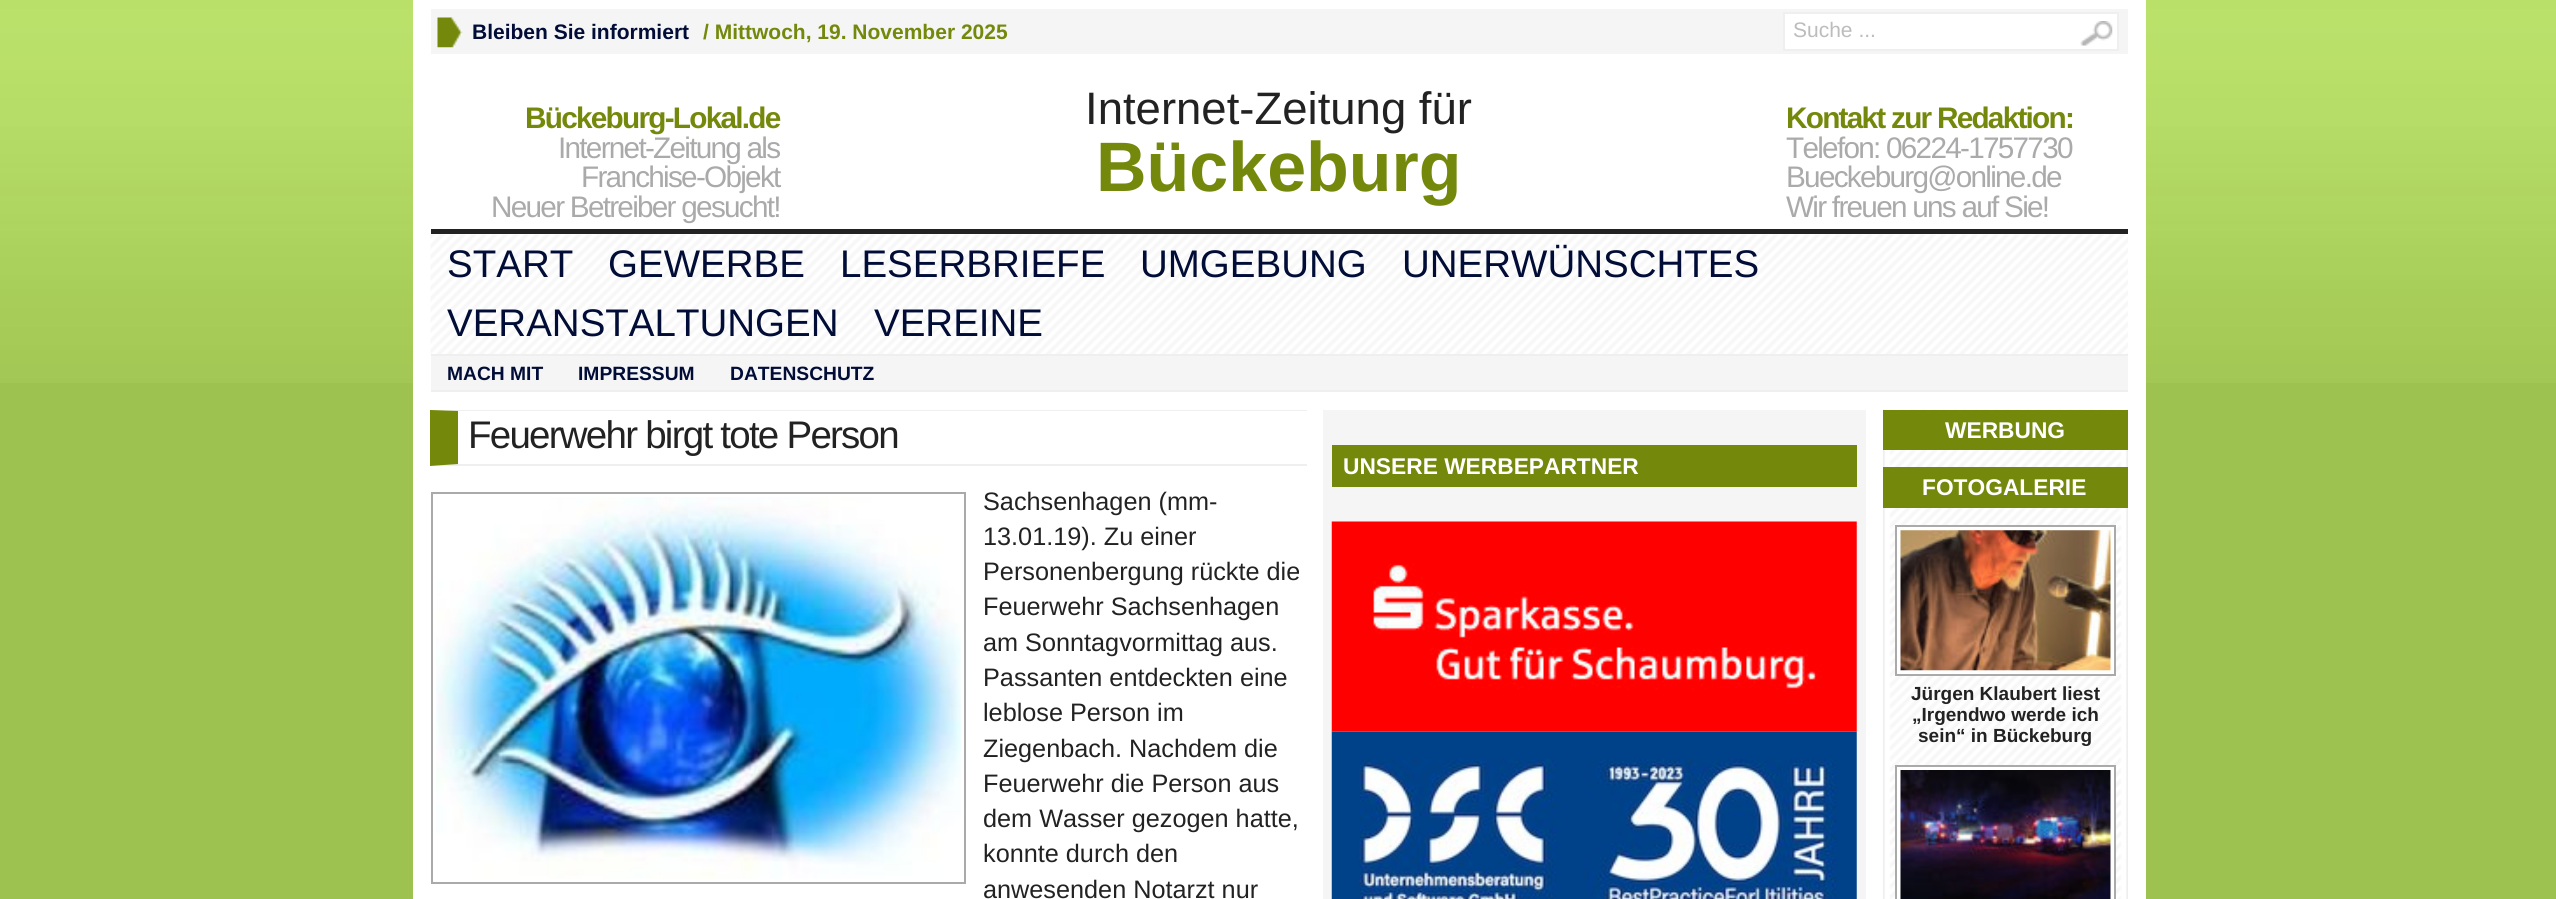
#include <cairo.h>
#include <math.h>
#include <stddef.h>


static void rgb(cairo_t *cr, int r, int g, int b)
{
	cairo_set_source_rgb(cr, r / 255.0, g / 255.0, b / 255.0);
}

static void face(cairo_t *cr, const char *family, double size, int italic, int bold)
{
	cairo_select_font_face(cr, family, italic ? CAIRO_FONT_SLANT_ITALIC : CAIRO_FONT_SLANT_NORMAL,
		bold ? CAIRO_FONT_WEIGHT_BOLD : CAIRO_FONT_WEIGHT_NORMAL);
	cairo_set_font_size(cr, size);
}

static void label(cairo_t *cr, double x, double y, const char *s)
{
	cairo_move_to(cr, x, y);
	cairo_show_text(cr, s);
}

static void tracked(cairo_t *cr, double x, double y, const char *s, double letter, double word)
{
	cairo_move_to(cr, x, y);
	while (*s) {
		char ch[5] = {0};
		int n = 0;
		do ch[n++] = *s++; while ((*s & 0xC0) == 0x80);
		cairo_show_text(cr, ch);
		cairo_rel_move_to(cr, letter + word * (*ch == ' '), 0);
	}
}

static void rect(cairo_t *cr, double x, double y, double w, double h)
{
	cairo_rectangle(cr, x, y, w, h);
	cairo_fill(cr);
}

static void image(cairo_t *cr, const char *path, double x, double y, double w, double h)
{
	cairo_surface_t *image = cairo_image_surface_create_from_png(path);
	cairo_save(cr);
	cairo_set_source_surface(cr, image, x, y);
	cairo_rectangle(cr, x, y, w, h);
	cairo_fill(cr);
	cairo_restore(cr);
	cairo_surface_destroy(image);
}

static void draw(cairo_t *cr) {
	rgb(cr, 157, 194, 80);
	cairo_paint(cr);
	image(cr, "image0.png", 0, 0, 2556, 383);
	rgb(cr, 255, 255, 255);
	rect(cr, 413, 0, 1733, 899);
	rgb(cr, 245, 245, 245);
	rect(cr, 431, 9, 1697, 45);
	image(cr, "image1.png", 437, 17, 26, 31);
	face(cr, "Liberation Sans", 21, 0, 1);
	rgb(cr, 1, 13, 55);
	label(cr, 472, 39, "Bleiben Sie informiert");
	rgb(cr, 116, 137, 11);
	label(cr, 703, 39, "/ Mittwoch, 19. November 2025");
	rgb(cr, 255, 255, 255);
	cairo_rectangle(cr, 1784, 13, 334, 37);
	cairo_fill_preserve(cr);
	rgb(cr, 239, 239, 239);
	cairo_stroke(cr);
	face(cr, "Liberation Sans", 21, 0, 0);
	rgb(cr, 188, 188, 188);
	label(cr, 1793, 37, "Suche ...");
	image(cr, "image2.png", 2080, 21, 33, 25);
	rgb(cr, 34, 34, 34);
	rect(cr, 431, 229, 1697, 5);
	face(cr, "Liberation Sans", 29.75, 0, 1);
	rgb(cr, 116, 137, 11);
	tracked(cr, 525, 128, "Bückeburg-Lokal.de", -1.75, 0);
	face(cr, "Liberation Sans", 29.75, 0, 0);
	rgb(cr, 170, 170, 170);
	tracked(cr, 558, 158, "Internet-Zeitung als", -1.75, 0);
	tracked(cr, 581, 187, "Franchise-Objekt", -1.75, 0);
	tracked(cr, 491, 217, "Neuer Betreiber gesucht!", -1.75, 0);
	face(cr, "Liberation Sans", 45.5, 0, 0);
	rgb(cr, 34, 34, 34);
	label(cr, 1085, 124, "Internet-Zeitung für");
	face(cr, "Liberation Sans", 70, 0, 1);
	rgb(cr, 116, 137, 11);
	label(cr, 1096, 191, "Bückeburg");
	face(cr, "Liberation Sans", 29.75, 0, 1);
	tracked(cr, 1786, 128, "Kontakt zur Redaktion:", -1.75, 0);
	face(cr, "Liberation Sans", 29.75, 0, 0);
	rgb(cr, 170, 170, 170);
	tracked(cr, 1786, 158, "Telefon: 06224-1757730", -1.75, 0);
	tracked(cr, 1786, 187, "Bueckeburg@online.de", -1.75, 0);
	tracked(cr, 1786, 217, "Wir freuen uns auf Sie!", -1.75, 0);
	image(cr, "image3.png", 430, 234, 1698, 121);
	rgb(cr, 239, 239, 239);
	rect(cr, 431, 354, 1697, 2);
	face(cr, "Liberation Sans", 38.5, 0, 0);
	rgb(cr, 1, 13, 55);
	label(cr, 447, 277, "START");
	label(cr, 608, 277, "GEWERBE");
	label(cr, 840, 277, "LESERBRIEFE");
	label(cr, 1140, 277, "UMGEBUNG");
	label(cr, 1402, 277, "UNERWÜNSCHTES");
	label(cr, 447, 336, "VERANSTALTUNGEN");
	label(cr, 874, 336, "VEREINE");
	rgb(cr, 245, 245, 245);
	rect(cr, 431, 356, 1697, 34);
	rgb(cr, 239, 239, 239);
	rect(cr, 431, 390, 1697, 2);
	face(cr, "Liberation Sans", 19.25, 0, 1);
	rgb(cr, 1, 13, 55);
	label(cr, 447, 380, "MACH MIT");
	label(cr, 578, 380, "IMPRESSUM");
	label(cr, 730, 380, "DATENSCHUTZ");
	rgb(cr, 239, 239, 239);
	cairo_new_path(cr);
	cairo_move_to(cr, 430, 410);
	cairo_line_to(cr, 1307, 410);
	cairo_line_to(cr, 1307, 411);
	cairo_line_to(cr, 458, 411);
	cairo_close_path(cr);
	cairo_fill(cr);
	cairo_new_path(cr);
	cairo_move_to(cr, 1307, 466);
	cairo_line_to(cr, 430, 466);
	cairo_line_to(cr, 458, 464);
	cairo_line_to(cr, 1307, 464);
	cairo_close_path(cr);
	cairo_fill(cr);
	rgb(cr, 116, 137, 11);
	cairo_new_path(cr);
	cairo_move_to(cr, 430, 466);
	cairo_line_to(cr, 430, 410);
	cairo_line_to(cr, 458, 411);
	cairo_line_to(cr, 458, 464);
	cairo_close_path(cr);
	cairo_fill(cr);
	face(cr, "Liberation Sans", 38.5, 0, 0);
	rgb(cr, 34, 34, 34);
	tracked(cr, 468, 448, "Feuerwehr birgt tote Person", -1.75, 0);
	cairo_rectangle(cr, 432, 493, 533, 390);
	rgb(cr, 170, 170, 170);
	cairo_stroke(cr);
	image(cr, "image4.png", 436, 497, 525, 382);
	face(cr, "Liberation Sans", 25.25, 0, 0);
	rgb(cr, 34, 34, 34);
	label(cr, 983, 510, "Sachsenhagen (mm-");
	label(cr, 983, 545, "13.01.19). Zu einer");
	label(cr, 983, 580, "Personenbergung rückte die");
	label(cr, 983, 615, "Feuerwehr Sachsenhagen");
	label(cr, 983, 651, "am Sonntagvormittag aus.");
	label(cr, 983, 686, "Passanten entdeckten eine");
	label(cr, 983, 721, "leblose Person im");
	label(cr, 983, 757, "Ziegenbach. Nachdem die");
	label(cr, 983, 792, "Feuerwehr die Person aus");
	label(cr, 983, 827, "dem Wasser gezogen hatte,");
	label(cr, 983, 862, "konnte durch den");
	label(cr, 983, 898, "anwesenden Notarzt nur");
	rgb(cr, 245, 245, 245);
	rect(cr, 1323, 410, 543, 489);
	rgb(cr, 116, 137, 11);
	rect(cr, 1332, 445, 525, 42);
	face(cr, "Liberation Sans", 22.75, 0, 1);
	rgb(cr, 255, 255, 255);
	label(cr, 1343, 474, "UNSERE WERBEPARTNER");
	image(cr, "image5.png", 1331, 521, 526, 211);
	image(cr, "image6.png", 1331, 731, 526, 168);
	image(cr, "image7.png", 1883, 409, 245, 490);
	rgb(cr, 116, 137, 11);
	rect(cr, 1883, 410, 245, 40);
	rgb(cr, 255, 255, 255);
	label(cr, 1945, 438, "WERBUNG");
	rgb(cr, 116, 137, 11);
	rect(cr, 1883, 467, 245, 41);
	rgb(cr, 255, 255, 255);
	label(cr, 1922, 495, "FOTOGALERIE");
	cairo_rectangle(cr, 1896, 526, 219, 149);
	cairo_fill_preserve(cr);
	rgb(cr, 170, 170, 170);
	cairo_stroke(cr);
	image(cr, "image8.png", 1900, 530, 211, 141);
	face(cr, "Liberation Sans", 19, 0, 1);
	rgb(cr, 34, 34, 34);
	label(cr, 1911, 700, "Jürgen Klaubert liest");
	label(cr, 1912, 721, "„Irgendwo werde ich");
	label(cr, 1918, 742, "sein“ in Bückeburg");
	rgb(cr, 255, 255, 255);
	cairo_rectangle(cr, 1896, 766, 219, 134);
	cairo_fill_preserve(cr);
	rgb(cr, 170, 170, 170);
	cairo_stroke(cr);
	image(cr, "image9.png", 1900, 770, 211, 129);
}

int main(void) {
	cairo_surface_t *surface = cairo_image_surface_create(CAIRO_FORMAT_RGB24, 2556, 899);
	cairo_t *cr = cairo_create(surface);
	cairo_font_options_t *options = cairo_font_options_create();
	cairo_font_options_set_hint_metrics(options, CAIRO_HINT_METRICS_OFF);
	cairo_font_options_set_hint_style(options, CAIRO_HINT_STYLE_NONE);
	cairo_set_font_options(cr, options);
	cairo_set_miter_limit(cr, 4);
	draw(cr);
	cairo_surface_write_to_png(surface, "render.png");
	cairo_font_options_destroy(options);
	cairo_destroy(cr);
	cairo_surface_destroy(surface);
	return 0;
}
